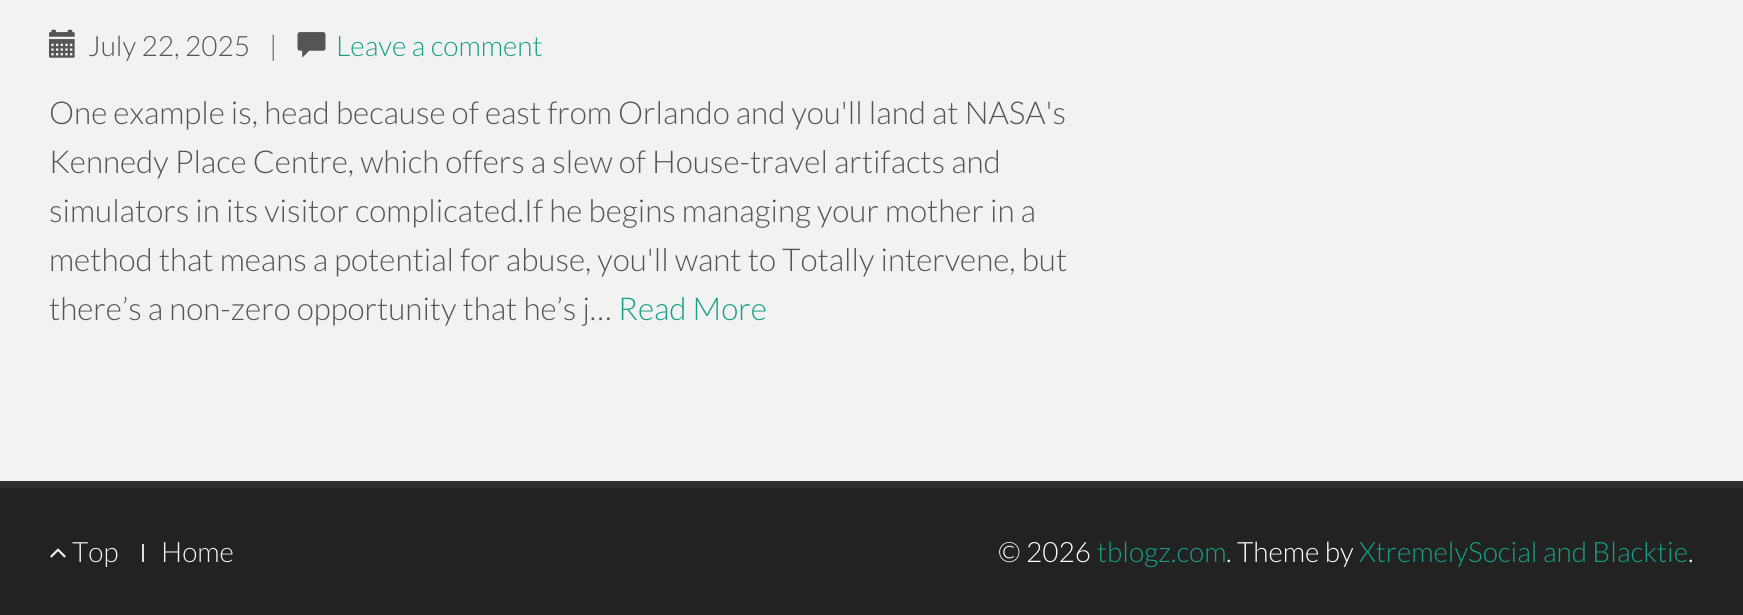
#include <cairo.h>
#include <math.h>
#include <stddef.h>


static void rgb(cairo_t *cr, int r, int g, int b)
{
	cairo_set_source_rgb(cr, r / 255.0, g / 255.0, b / 255.0);
}

static void face(cairo_t *cr, const char *family, double size, int italic, int bold)
{
	cairo_select_font_face(cr, family, italic ? CAIRO_FONT_SLANT_ITALIC : CAIRO_FONT_SLANT_NORMAL,
		bold ? CAIRO_FONT_WEIGHT_BOLD : CAIRO_FONT_WEIGHT_NORMAL);
	cairo_set_font_size(cr, size);
}

static void label(cairo_t *cr, double x, double y, const char *s)
{
	cairo_move_to(cr, x, y);
	cairo_show_text(cr, s);
}

static void rect(cairo_t *cr, double x, double y, double w, double h)
{
	cairo_rectangle(cr, x, y, w, h);
	cairo_fill(cr);
}

static void image(cairo_t *cr, const char *path, double x, double y, double w, double h)
{
	cairo_surface_t *image = cairo_image_surface_create_from_png(path);
	cairo_save(cr);
	cairo_set_source_surface(cr, image, x, y);
	cairo_rectangle(cr, x, y, w, h);
	cairo_fill(cr);
	cairo_restore(cr);
	cairo_surface_destroy(image);
}

static void draw(cairo_t *cr) {
	rgb(cr, 242, 242, 242);
	cairo_paint(cr);
	image(cr, "image0.png", 49, 29, 26, 29);
	face(cr, "Lato Light", 28, 0, 0);
	rgb(cr, 85, 85, 85);
	label(cr, 88, 56, "July 22, 2025");
	label(cr, 269, 56, "|");
	image(cr, "image1.png", 297, 32, 29, 26);
	rgb(cr, 22, 160, 133);
	label(cr, 336, 56, "Leave a comment");
	face(cr, "Lato Light", 31.5, 0, 0);
	rgb(cr, 85, 85, 85);
	label(cr, 49, 124, "One example is, head because of east from Orlando and you'll land at NASA's");
	label(cr, 49, 173, "Kennedy Place Centre, which offers a slew of House-travel artifacts and");
	label(cr, 49, 222, "simulators in its visitor complicated.If he begins managing your mother in a");
	label(cr, 49, 271, "method that means a potential for abuse, you'll want to Totally intervene, but");
	label(cr, 49, 320, "there’s a non-zero opportunity that he’s j…");
	rgb(cr, 22, 160, 133);
	label(cr, 618, 320, "Read More");
	rgb(cr, 47, 47, 47);
	rect(cr, 0, 481, 1743, 7);
	rgb(cr, 34, 34, 34);
	rect(cr, 0, 488, 1743, 127);
	image(cr, "image2.png", 50, 548, 16, 10);
	face(cr, "Lato Light", 28, 0, 0);
	rgb(cr, 242, 242, 242);
	label(cr, 72, 562, "Top");
	rgb(cr, 221, 221, 221);
	rect(cr, 142, 544, 2, 18);
	rgb(cr, 242, 242, 242);
	label(cr, 161, 562, "Home");
	rgb(cr, 255, 255, 255);
	label(cr, 998, 562, "© 2026");
	rgb(cr, 22, 160, 133);
	label(cr, 1097, 562, "tblogz.com");
	rgb(cr, 255, 255, 255);
	label(cr, 1226, 562, ". Theme by");
	rgb(cr, 22, 160, 133);
	label(cr, 1359, 562, "XtremelySocial and Blacktie");
	rgb(cr, 255, 255, 255);
	label(cr, 1688, 562, ".");
}

int main(void) {
	cairo_surface_t *surface = cairo_image_surface_create(CAIRO_FORMAT_RGB24, 1743, 615);
	cairo_t *cr = cairo_create(surface);
	cairo_font_options_t *options = cairo_font_options_create();
	cairo_font_options_set_hint_metrics(options, CAIRO_HINT_METRICS_OFF);
	cairo_font_options_set_hint_style(options, CAIRO_HINT_STYLE_NONE);
	cairo_set_font_options(cr, options);
	cairo_set_miter_limit(cr, 4);
	draw(cr);
	cairo_surface_write_to_png(surface, "render.png");
	cairo_font_options_destroy(options);
	cairo_destroy(cr);
	cairo_surface_destroy(surface);
	return 0;
}
